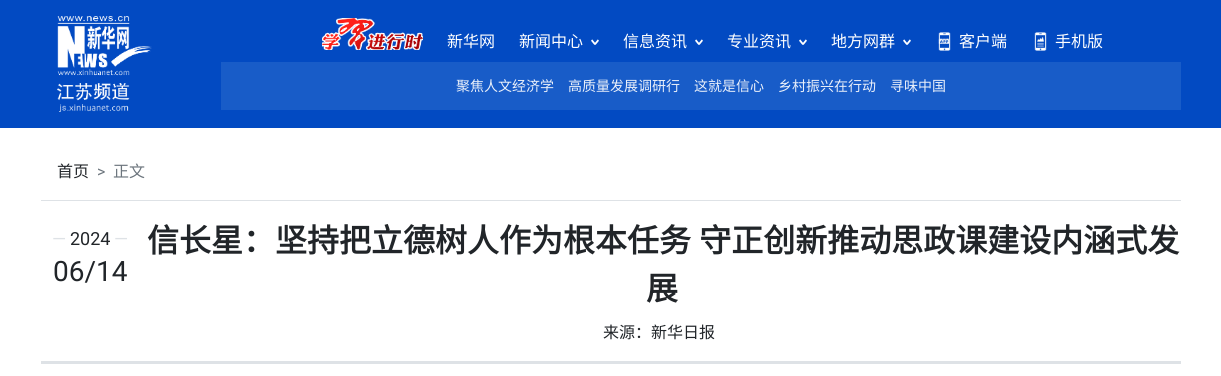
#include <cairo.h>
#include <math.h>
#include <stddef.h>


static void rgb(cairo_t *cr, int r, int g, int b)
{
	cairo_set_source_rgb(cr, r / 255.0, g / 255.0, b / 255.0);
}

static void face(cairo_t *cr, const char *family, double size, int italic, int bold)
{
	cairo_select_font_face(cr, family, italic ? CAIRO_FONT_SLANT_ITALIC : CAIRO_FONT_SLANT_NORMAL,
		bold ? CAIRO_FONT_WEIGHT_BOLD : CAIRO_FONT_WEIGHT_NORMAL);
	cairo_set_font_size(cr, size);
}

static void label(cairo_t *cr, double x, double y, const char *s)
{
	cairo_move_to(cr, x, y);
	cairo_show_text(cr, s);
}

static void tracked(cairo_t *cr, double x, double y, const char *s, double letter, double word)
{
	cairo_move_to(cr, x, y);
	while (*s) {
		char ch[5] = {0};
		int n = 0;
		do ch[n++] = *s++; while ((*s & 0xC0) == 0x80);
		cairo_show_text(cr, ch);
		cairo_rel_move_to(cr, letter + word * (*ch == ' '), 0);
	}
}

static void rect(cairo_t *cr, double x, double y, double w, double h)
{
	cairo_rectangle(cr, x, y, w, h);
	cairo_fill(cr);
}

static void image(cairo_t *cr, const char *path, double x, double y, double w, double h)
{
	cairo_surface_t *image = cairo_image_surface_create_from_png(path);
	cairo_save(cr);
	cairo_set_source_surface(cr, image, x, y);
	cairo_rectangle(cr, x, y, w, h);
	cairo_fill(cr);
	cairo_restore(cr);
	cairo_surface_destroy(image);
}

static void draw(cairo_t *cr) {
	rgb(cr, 255, 255, 255);
	cairo_paint(cr);
	rgb(cr, 2, 74, 194);
	rect(cr, 0, 0, 1221, 128);
	image(cr, "image0.png", 57, 16, 95, 96);
	image(cr, "image1.png", 322, 18, 101, 32);
	face(cr, "Noto Sans CJK SC", 16, 0, 0);
	rgb(cr, 255, 255, 255);
	label(cr, 447, 47, "新华网");
	label(cr, 519, 47, "新闻中心");
	image(cr, "image2.png", 591, 39, 8, 6);
	label(cr, 623, 47, "信息资讯");
	image(cr, "image2.png", 695, 39, 8, 6);
	label(cr, 727, 47, "专业资讯");
	image(cr, "image2.png", 799, 39, 8, 6);
	label(cr, 831, 47, "地方网群");
	image(cr, "image2.png", 903, 39, 8, 6);
	image(cr, "image3.png", 938, 32, 13, 19);
	label(cr, 959, 47, "客户端");
	image(cr, "image4.png", 1034, 32, 13, 19);
	label(cr, 1055, 47, "手机版");
	rgb(cr, 24, 92, 200);
	rect(cr, 221, 62, 960, 48);
	face(cr, "Noto Sans CJK SC", 14, 0, 0);
	rgb(cr, 234, 240, 250);
	label(cr, 456, 91, "聚焦人文经济学");
	label(cr, 568, 91, "高质量发展调研行");
	label(cr, 694, 91, "这就是信心");
	label(cr, 778, 91, "乡村振兴在行动");
	label(cr, 890, 91, "寻味中国");
	rgb(cr, 222, 226, 230);
	rect(cr, 41, 200, 1140, 1);
	face(cr, "Noto Sans CJK SC", 16, 0, 0);
	rgb(cr, 33, 37, 41);
	label(cr, 57, 177, "首页");
	face(cr, "Roboto", 16, 0, 0);
	rgb(cr, 108, 117, 125);
	label(cr, 97, 177, ">");
	face(cr, "Noto Sans CJK SC", 16, 0, 0);
	label(cr, 113, 177, "正文");
	rgb(cr, 222, 226, 230);
	rect(cr, 41, 361, 1140, 3);
	face(cr, "Roboto", 18, 0, 0);
	label(cr, 52, 245, "—");
	rgb(cr, 33, 37, 41);
	label(cr, 70, 245, "2024");
	rgb(cr, 222, 226, 230);
	label(cr, 114, 245, "—");
	face(cr, "Roboto", 28, 0, 0);
	rgb(cr, 33, 37, 41);
	label(cr, 53, 281, "06/14");
	face(cr, "Noto Sans CJK SC", 32, 0, 1);
	tracked(cr, 147, 252, "信长星：坚持把立德树人作为根本任务 守正创新推动思政课建设内涵式发", 0, 1);
	label(cr, 646, 300, "展");
	face(cr, "Noto Sans CJK SC", 16, 0, 0);
	label(cr, 603, 338, "来源：新华日报");
}

int main(void) {
	cairo_surface_t *surface = cairo_image_surface_create(CAIRO_FORMAT_RGB24, 1221, 376);
	cairo_t *cr = cairo_create(surface);
	cairo_font_options_t *options = cairo_font_options_create();
	cairo_font_options_set_hint_metrics(options, CAIRO_HINT_METRICS_OFF);
	cairo_font_options_set_hint_style(options, CAIRO_HINT_STYLE_NONE);
	cairo_set_font_options(cr, options);
	cairo_set_miter_limit(cr, 4);
	draw(cr);
	cairo_surface_write_to_png(surface, "render.png");
	cairo_font_options_destroy(options);
	cairo_destroy(cr);
	cairo_surface_destroy(surface);
	return 0;
}
